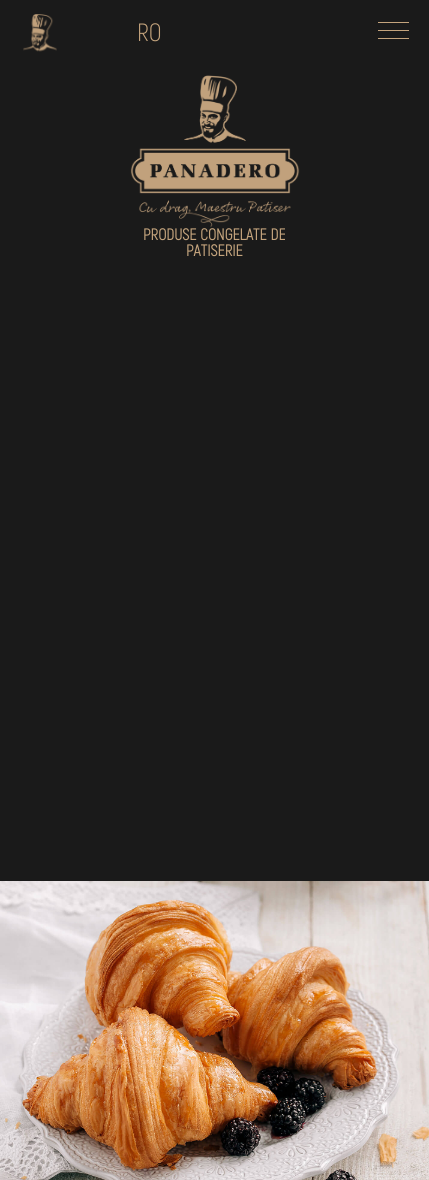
#include <cairo.h>
#include <math.h>
#include <stddef.h>


static void rgb(cairo_t *cr, int r, int g, int b)
{
	cairo_set_source_rgb(cr, r / 255.0, g / 255.0, b / 255.0);
}

static void face(cairo_t *cr, const char *family, double size, int italic, int bold)
{
	cairo_select_font_face(cr, family, italic ? CAIRO_FONT_SLANT_ITALIC : CAIRO_FONT_SLANT_NORMAL,
		bold ? CAIRO_FONT_WEIGHT_BOLD : CAIRO_FONT_WEIGHT_NORMAL);
	cairo_set_font_size(cr, size);
}

static void label(cairo_t *cr, double x, double y, const char *s)
{
	cairo_move_to(cr, x, y);
	cairo_show_text(cr, s);
}

static void rect(cairo_t *cr, double x, double y, double w, double h)
{
	cairo_rectangle(cr, x, y, w, h);
	cairo_fill(cr);
}

static void image(cairo_t *cr, const char *path, double x, double y, double w, double h)
{
	cairo_surface_t *image = cairo_image_surface_create_from_png(path);
	cairo_save(cr);
	cairo_set_source_surface(cr, image, x, y);
	cairo_rectangle(cr, x, y, w, h);
	cairo_fill(cr);
	cairo_restore(cr);
	cairo_surface_destroy(image);
}

static void draw(cairo_t *cr) {
	rgb(cr, 26, 26, 26);
	cairo_paint(cr);
	image(cr, "image0.png", 23, 14, 34, 38);
	face(cr, "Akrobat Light", 25, 0, 0);
	rgb(cr, 196, 164, 125);
	label(cr, 137, 41, "RO");
	rect(cr, 378, 22, 31, 1);
	rect(cr, 378, 30, 31, 1);
	rect(cr, 378, 38, 31, 1);
	image(cr, "image1.png", 130, 75, 170, 152);
	face(cr, "Akrobat", 16, 0, 1);
	label(cr, 143, 240, "PRODUSE CONGELATE DE");
	label(cr, 186, 256, "PATISERIE");
	image(cr, "image2.png", 0, 881, 429, 299);
}

int main(void) {
	cairo_surface_t *surface = cairo_image_surface_create(CAIRO_FORMAT_RGB24, 429, 1180);
	cairo_t *cr = cairo_create(surface);
	cairo_font_options_t *options = cairo_font_options_create();
	cairo_font_options_set_hint_metrics(options, CAIRO_HINT_METRICS_OFF);
	cairo_font_options_set_hint_style(options, CAIRO_HINT_STYLE_NONE);
	cairo_set_font_options(cr, options);
	cairo_set_miter_limit(cr, 4);
	draw(cr);
	cairo_surface_write_to_png(surface, "render.png");
	cairo_font_options_destroy(options);
	cairo_destroy(cr);
	cairo_surface_destroy(surface);
	return 0;
}
